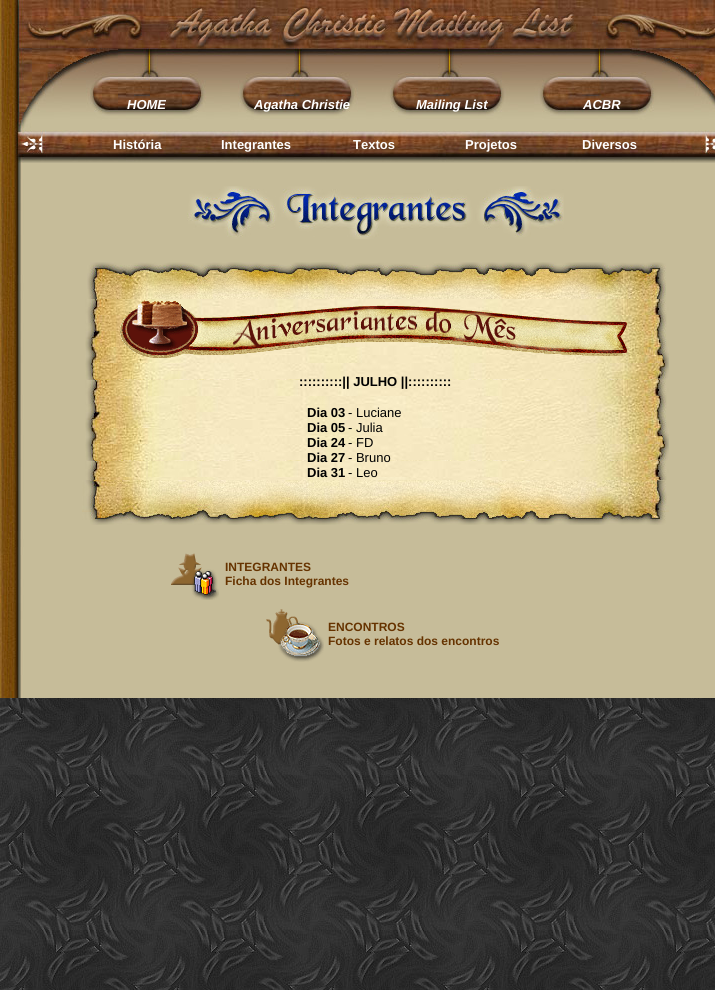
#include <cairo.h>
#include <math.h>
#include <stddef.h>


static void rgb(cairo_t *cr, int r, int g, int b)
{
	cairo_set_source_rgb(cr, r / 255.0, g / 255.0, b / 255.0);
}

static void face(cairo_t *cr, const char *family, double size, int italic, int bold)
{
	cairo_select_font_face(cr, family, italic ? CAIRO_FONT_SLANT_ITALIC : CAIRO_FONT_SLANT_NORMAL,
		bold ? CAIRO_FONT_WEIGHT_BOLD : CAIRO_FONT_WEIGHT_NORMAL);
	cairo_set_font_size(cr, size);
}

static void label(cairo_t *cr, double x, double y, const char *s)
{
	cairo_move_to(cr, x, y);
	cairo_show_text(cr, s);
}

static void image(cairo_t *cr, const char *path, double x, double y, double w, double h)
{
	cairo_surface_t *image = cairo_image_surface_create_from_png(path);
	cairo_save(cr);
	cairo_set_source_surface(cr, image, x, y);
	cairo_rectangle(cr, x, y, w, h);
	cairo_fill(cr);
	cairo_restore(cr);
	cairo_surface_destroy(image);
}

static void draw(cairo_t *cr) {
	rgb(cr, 255, 255, 255);
	cairo_paint(cr);
	image(cr, "image0.png", 0, 698, 715, 292);
	image(cr, "image1.png", 0, 0, 46, 130);
	image(cr, "image2.png", 46, 0, 655, 130);
	face(cr, "Liberation Sans", 13, 1, 1);
	rgb(cr, 255, 255, 255);
	label(cr, 127, 109, "HOME");
	label(cr, 254, 109, "Agatha Christie");
	label(cr, 416, 109, "Mailing List");
	label(cr, 583, 109, "ACBR");
	image(cr, "image3.png", 701, 0, 14, 130);
	image(cr, "image4.png", 0, 130, 46, 33);
	image(cr, "image5.png", 46, 130, 655, 33);
	face(cr, "Liberation Sans", 13, 0, 1);
	label(cr, 113, 149, "História");
	label(cr, 221, 149, "Integrantes");
	label(cr, 353, 149, "Textos");
	label(cr, 465, 149, "Projetos");
	label(cr, 582, 149, "Diversos");
	image(cr, "image6.png", 701, 130, 14, 33);
	image(cr, "image7.png", 0, 163, 715, 535);
	image(cr, "image8.png", 187, 186, 377, 53);
	image(cr, "image9.png", 87, 262, 579, 37);
	image(cr, "image10.png", 85, 299, 584, 181);
	image(cr, "image11.png", 120, 300, 508, 58);
	rgb(cr, 0, 0, 0);
	label(cr, 299, 386, "::::::::::|| JULHO ||::::::::::");
	label(cr, 307, 417, "Dia 03");
	face(cr, "Liberation Sans", 13, 0, 0);
	label(cr, 348, 417, "- Luciane");
	face(cr, "Liberation Sans", 13, 0, 1);
	label(cr, 307, 432, "Dia 05");
	face(cr, "Liberation Sans", 13, 0, 0);
	label(cr, 348, 432, "- Julia");
	face(cr, "Liberation Sans", 13, 0, 1);
	label(cr, 307, 447, "Dia 24");
	face(cr, "Liberation Sans", 13, 0, 0);
	label(cr, 348, 447, "- FD");
	face(cr, "Liberation Sans", 13, 0, 1);
	label(cr, 307, 462, "Dia 27");
	face(cr, "Liberation Sans", 13, 0, 0);
	label(cr, 348, 462, "- Bruno");
	face(cr, "Liberation Sans", 13, 0, 1);
	label(cr, 307, 477, "Dia 31");
	face(cr, "Liberation Sans", 13, 0, 0);
	label(cr, 348, 477, "- Leo");
	image(cr, "image12.png", 82, 480, 587, 45);
	image(cr, "image13.png", 171, 553, 48, 47);
	face(cr, "Liberation Sans", 12, 0, 1);
	rgb(cr, 102, 51, 0);
	label(cr, 225, 571, "INTEGRANTES");
	label(cr, 225, 585, "Ficha dos Integrantes");
	image(cr, "image14.png", 266, 609, 58, 53);
	label(cr, 328, 631, "ENCONTROS");
	label(cr, 328, 645, "Fotos e relatos dos encontros");
}

int main(void) {
	cairo_surface_t *surface = cairo_image_surface_create(CAIRO_FORMAT_RGB24, 715, 990);
	cairo_t *cr = cairo_create(surface);
	cairo_font_options_t *options = cairo_font_options_create();
	cairo_font_options_set_hint_metrics(options, CAIRO_HINT_METRICS_OFF);
	cairo_font_options_set_hint_style(options, CAIRO_HINT_STYLE_NONE);
	cairo_set_font_options(cr, options);
	cairo_set_miter_limit(cr, 4);
	draw(cr);
	cairo_surface_write_to_png(surface, "render.png");
	cairo_font_options_destroy(options);
	cairo_destroy(cr);
	cairo_surface_destroy(surface);
	return 0;
}
